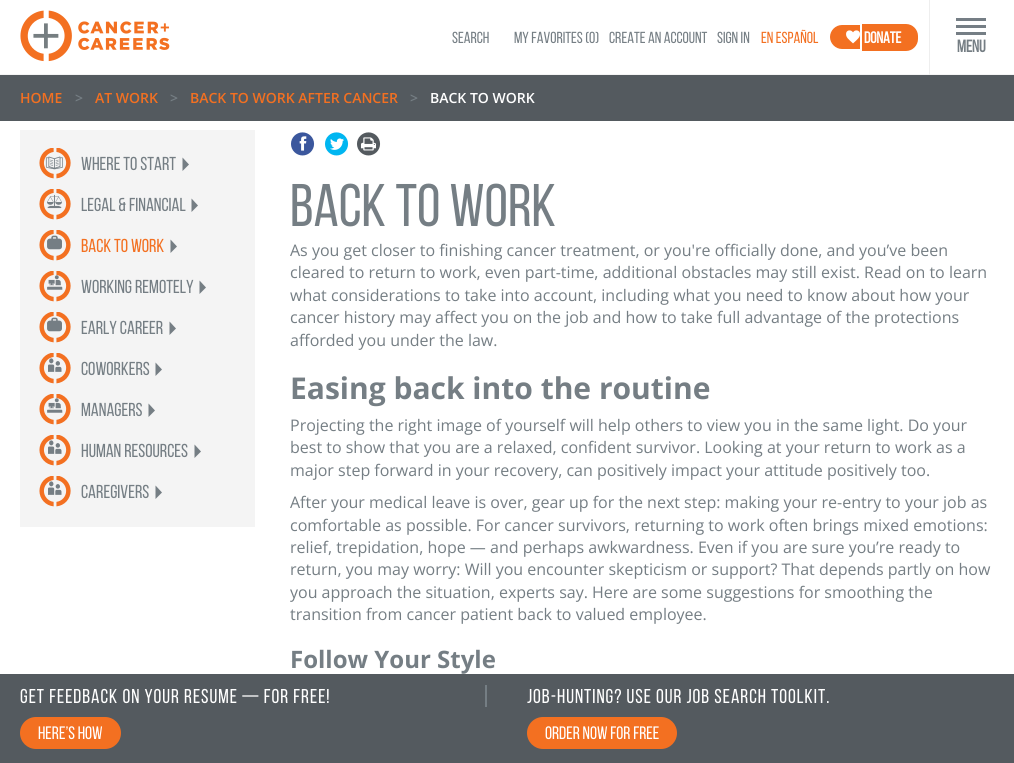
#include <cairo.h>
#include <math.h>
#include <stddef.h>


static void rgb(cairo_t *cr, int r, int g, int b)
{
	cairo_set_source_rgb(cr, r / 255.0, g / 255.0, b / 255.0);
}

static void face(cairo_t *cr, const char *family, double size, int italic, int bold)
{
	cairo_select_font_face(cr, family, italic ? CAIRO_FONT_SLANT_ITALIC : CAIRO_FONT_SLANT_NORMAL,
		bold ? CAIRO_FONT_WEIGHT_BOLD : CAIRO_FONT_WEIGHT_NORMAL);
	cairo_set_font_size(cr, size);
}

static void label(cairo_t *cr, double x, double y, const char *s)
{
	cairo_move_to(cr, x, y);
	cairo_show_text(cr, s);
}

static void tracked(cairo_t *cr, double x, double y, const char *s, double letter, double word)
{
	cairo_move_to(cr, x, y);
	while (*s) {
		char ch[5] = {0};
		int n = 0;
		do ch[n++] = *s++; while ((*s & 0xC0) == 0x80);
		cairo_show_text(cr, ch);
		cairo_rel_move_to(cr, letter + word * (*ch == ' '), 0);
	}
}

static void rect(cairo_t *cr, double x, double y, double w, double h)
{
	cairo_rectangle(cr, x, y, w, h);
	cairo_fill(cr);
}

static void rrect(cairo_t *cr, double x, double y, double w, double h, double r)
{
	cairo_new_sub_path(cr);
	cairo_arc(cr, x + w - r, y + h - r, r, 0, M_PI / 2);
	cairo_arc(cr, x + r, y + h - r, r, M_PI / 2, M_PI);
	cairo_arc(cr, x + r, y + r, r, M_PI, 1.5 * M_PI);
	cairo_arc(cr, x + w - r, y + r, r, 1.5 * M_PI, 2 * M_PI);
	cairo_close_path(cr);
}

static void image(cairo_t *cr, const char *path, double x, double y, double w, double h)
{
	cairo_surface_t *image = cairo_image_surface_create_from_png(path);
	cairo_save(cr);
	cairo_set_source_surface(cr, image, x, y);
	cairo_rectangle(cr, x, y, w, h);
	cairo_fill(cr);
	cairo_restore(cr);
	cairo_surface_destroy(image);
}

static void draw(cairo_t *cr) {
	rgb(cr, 255, 255, 255);
	cairo_paint(cr);
	rgb(cr, 244, 244, 244);
	rect(cr, 0, 74, 1014, 1);
	image(cr, "image0.png", 20, 10, 150, 52);
	face(cr, "Bebas Neue", 16, 0, 0);
	rgb(cr, 117, 126, 132);
	label(cr, 452, 43, "SEARCH");
	label(cr, 514, 43, "My Favorites (0)");
	label(cr, 609, 43, "Create an Account");
	label(cr, 717, 43, "Sign In");
	rgb(cr, 243, 112, 33);
	label(cr, 761, 43, "En Español");
	cairo_new_path(cr);
	cairo_move_to(cr, 842, 25);
	cairo_line_to(cr, 860, 25);
	cairo_line_to(cr, 860, 49);
	cairo_line_to(cr, 842, 49);
	cairo_curve_to(cr, 835.5, 49, 830, 43.5, 830, 37);
	cairo_curve_to(cr, 830, 30.5, 835.5, 25, 842, 25);
	cairo_close_path(cr);
	cairo_fill(cr);
	image(cr, "image1.png", 846, 30, 14, 14);
	cairo_new_path(cr);
	cairo_move_to(cr, 862, 24);
	cairo_line_to(cr, 906, 24);
	cairo_curve_to(cr, 912.5, 24, 918, 29.5, 918, 36);
	cairo_line_to(cr, 918, 39);
	cairo_curve_to(cr, 918, 45.5, 912.5, 51, 906, 51);
	cairo_line_to(cr, 862, 51);
	cairo_close_path(cr);
	cairo_fill(cr);
	face(cr, "Bebas Neue", 16, 0, 1);
	rgb(cr, 255, 255, 255);
	label(cr, 864, 43, "Donate");
	rgb(cr, 238, 238, 238);
	rect(cr, 929, 0, 1, 75);
	rgb(cr, 117, 126, 133);
	rect(cr, 956, 18, 30, 3);
	rect(cr, 956, 25, 30, 3);
	rect(cr, 956, 32, 30, 3);
	face(cr, "Bebas Neue", 17, 0, 1);
	rgb(cr, 117, 126, 132);
	label(cr, 957, 52, "Menu");
	rgb(cr, 84, 90, 95);
	rect(cr, 0, 75, 1014, 46);
	face(cr, "Open Sans SemiBold", 14, 0, 0);
	rgb(cr, 243, 112, 33);
	label(cr, 20, 103, "HOME");
	rgb(cr, 117, 126, 132);
	label(cr, 75, 103, ">");
	rgb(cr, 243, 112, 33);
	label(cr, 95, 103, "AT WORK");
	rgb(cr, 117, 126, 132);
	label(cr, 170, 103, ">");
	rgb(cr, 243, 112, 33);
	label(cr, 190, 103, "BACK TO WORK AFTER CANCER");
	rgb(cr, 117, 126, 132);
	label(cr, 410, 103, ">");
	rgb(cr, 255, 255, 255);
	label(cr, 430, 103, "BACK TO WORK");
	rgb(cr, 244, 244, 244);
	rect(cr, 20, 130, 235, 397);
	image(cr, "image2.png", 39, 148, 32, 31);
	image(cr, "image3.png", 45, 156, 18, 14);
	face(cr, "Bebas Neue", 18.75, 0, 0);
	rgb(cr, 117, 126, 132);
	label(cr, 81, 170, "Where to Start");
	cairo_new_path(cr);
	cairo_move_to(cr, 182.5, 157.5);
	cairo_line_to(cr, 182.5, 171);
	cairo_line_to(cr, 189, 164.5);
	cairo_close_path(cr);
	cairo_fill(cr);
	image(cr, "image2.png", 39, 189, 32, 31);
	image(cr, "image4.png", 47, 194, 15, 15);
	label(cr, 81, 211, "legal & financial");
	cairo_new_path(cr);
	cairo_move_to(cr, 191.5, 198.5);
	cairo_line_to(cr, 191.5, 212);
	cairo_line_to(cr, 198, 205.5);
	cairo_close_path(cr);
	cairo_fill(cr);
	image(cr, "image2.png", 39, 230, 32, 31);
	image(cr, "image5.png", 47, 235, 15, 15);
	rgb(cr, 243, 112, 33);
	label(cr, 81, 252, "back to work");
	rgb(cr, 117, 126, 132);
	cairo_new_path(cr);
	cairo_move_to(cr, 170.5, 239.5);
	cairo_line_to(cr, 170.5, 253);
	cairo_line_to(cr, 177, 246.5);
	cairo_close_path(cr);
	cairo_fill(cr);
	image(cr, "image2.png", 39, 271, 32, 31);
	image(cr, "image6.png", 47, 275, 16, 15);
	label(cr, 81, 293, "Working Remotely");
	cairo_new_path(cr);
	cairo_move_to(cr, 199.5, 280.5);
	cairo_line_to(cr, 199.5, 294);
	cairo_line_to(cr, 206, 287.5);
	cairo_close_path(cr);
	cairo_fill(cr);
	image(cr, "image2.png", 39, 312, 32, 31);
	image(cr, "image5.png", 47, 317, 15, 15);
	label(cr, 81, 334, "Early Career");
	cairo_new_path(cr);
	cairo_move_to(cr, 169.5, 321.5);
	cairo_line_to(cr, 169.5, 335);
	cairo_line_to(cr, 176, 328.5);
	cairo_close_path(cr);
	cairo_fill(cr);
	image(cr, "image2.png", 39, 353, 32, 31);
	image(cr, "image7.png", 48, 358, 14, 14);
	label(cr, 81, 375, "coworkers");
	cairo_new_path(cr);
	cairo_move_to(cr, 155.5, 362.5);
	cairo_line_to(cr, 155.5, 376);
	cairo_line_to(cr, 162, 369.5);
	cairo_close_path(cr);
	cairo_fill(cr);
	image(cr, "image2.png", 39, 394, 32, 31);
	image(cr, "image6.png", 47, 398, 16, 15);
	label(cr, 81, 416, "Managers");
	cairo_new_path(cr);
	cairo_move_to(cr, 148.5, 403.5);
	cairo_line_to(cr, 148.5, 417);
	cairo_line_to(cr, 155, 410.5);
	cairo_close_path(cr);
	cairo_fill(cr);
	image(cr, "image2.png", 39, 435, 32, 31);
	image(cr, "image7.png", 48, 440, 14, 14);
	label(cr, 81, 457, "Human Resources");
	cairo_new_path(cr);
	cairo_move_to(cr, 194.5, 444.5);
	cairo_line_to(cr, 194.5, 458);
	cairo_line_to(cr, 201, 451.5);
	cairo_close_path(cr);
	cairo_fill(cr);
	image(cr, "image2.png", 39, 476, 32, 31);
	image(cr, "image7.png", 48, 481, 14, 14);
	label(cr, 81, 498, "Caregivers");
	cairo_new_path(cr);
	cairo_move_to(cr, 155.5, 485.5);
	cairo_line_to(cr, 155.5, 499);
	cairo_line_to(cr, 162, 492.5);
	cairo_close_path(cr);
	cairo_fill(cr);
	image(cr, "image8.png", 291, 132, 24, 24);
	image(cr, "image9.png", 325, 132, 24, 24);
	image(cr, "image10.png", 357, 132, 24, 24);
	face(cr, "Bebas Neue", 60, 0, 0);
	label(cr, 290, 226, "Back to Work");
	face(cr, "Open Sans", 16, 0, 0);
	label(cr, 290, 256, "As you get closer to finishing cancer treatment, or you're officially done, and you’ve been");
	label(cr, 290, 278, "cleared to return to work, even part-time, additional obstacles may still exist. Read on to learn");
	label(cr, 290, 301, "what considerations to take into account, including what you need to know about how your");
	label(cr, 290, 323, "cancer history may affect you on the job and how to take full advantage of the protections");
	label(cr, 290, 346, "afforded you under the law.");
	face(cr, "Open Sans", 30, 0, 1);
	label(cr, 290, 399, "Easing back into the routine");
	face(cr, "Open Sans", 16, 0, 0);
	label(cr, 290, 431, "Projecting the right image of yourself will help others to view you in the same light. Do your");
	label(cr, 290, 453, "best to show that you are a relaxed, confident survivor. Looking at your return to work as a");
	label(cr, 290, 476, "major step forward in your recovery, can positively impact your attitude positively too.");
	label(cr, 290, 508, "After your medical leave is over, gear up for the next step: making your re-entry to your job as");
	label(cr, 290, 531, "comfortable as possible. For cancer survivors, returning to work often brings mixed emotions:");
	label(cr, 290, 553, "relief, trepidation, hope — and perhaps awkwardness. Even if you are sure you’re ready to");
	label(cr, 290, 575, "return, you may worry: Will you encounter skepticism or support? That depends partly on how");
	label(cr, 290, 598, "you approach the situation, experts say. Here are some suggestions for smoothing the");
	label(cr, 290, 620, "transition from cancer patient back to valued employee.");
	face(cr, "Open Sans", 24, 0, 1);
	label(cr, 290, 668, "Follow Your Style");
	rgb(cr, 84, 90, 95);
	rect(cr, 0, 674, 1014, 89);
	rgb(cr, 117, 126, 132);
	rect(cr, 485, 685, 2, 22);
	face(cr, "Bebas Neue", 20, 0, 0);
	rgb(cr, 255, 255, 255);
	tracked(cr, 20, 703, "Get Feedback on Your Resume — For Free!", 1, 0);
	rgb(cr, 243, 112, 33);
	rrect(cr, 20, 717, 101, 32, 16);
	cairo_fill(cr);
	face(cr, "Bebas Neue", 18, 0, 0);
	rgb(cr, 255, 255, 255);
	label(cr, 38, 739, "Here’s How");
	face(cr, "Bebas Neue", 20, 0, 0);
	tracked(cr, 527, 703, "Job-Hunting? Use Our Job Search Toolkit.", 1, 0);
	rgb(cr, 243, 112, 33);
	rrect(cr, 527, 717, 150, 32, 16);
	cairo_fill(cr);
	face(cr, "Bebas Neue", 18, 0, 0);
	rgb(cr, 255, 255, 255);
	label(cr, 545, 739, "Order Now for Free");
}

int main(void) {
	cairo_surface_t *surface = cairo_image_surface_create(CAIRO_FORMAT_RGB24, 1014, 763);
	cairo_t *cr = cairo_create(surface);
	cairo_font_options_t *options = cairo_font_options_create();
	cairo_font_options_set_hint_metrics(options, CAIRO_HINT_METRICS_OFF);
	cairo_font_options_set_hint_style(options, CAIRO_HINT_STYLE_NONE);
	cairo_set_font_options(cr, options);
	cairo_set_miter_limit(cr, 4);
	draw(cr);
	cairo_surface_write_to_png(surface, "render.png");
	cairo_font_options_destroy(options);
	cairo_destroy(cr);
	cairo_surface_destroy(surface);
	return 0;
}
